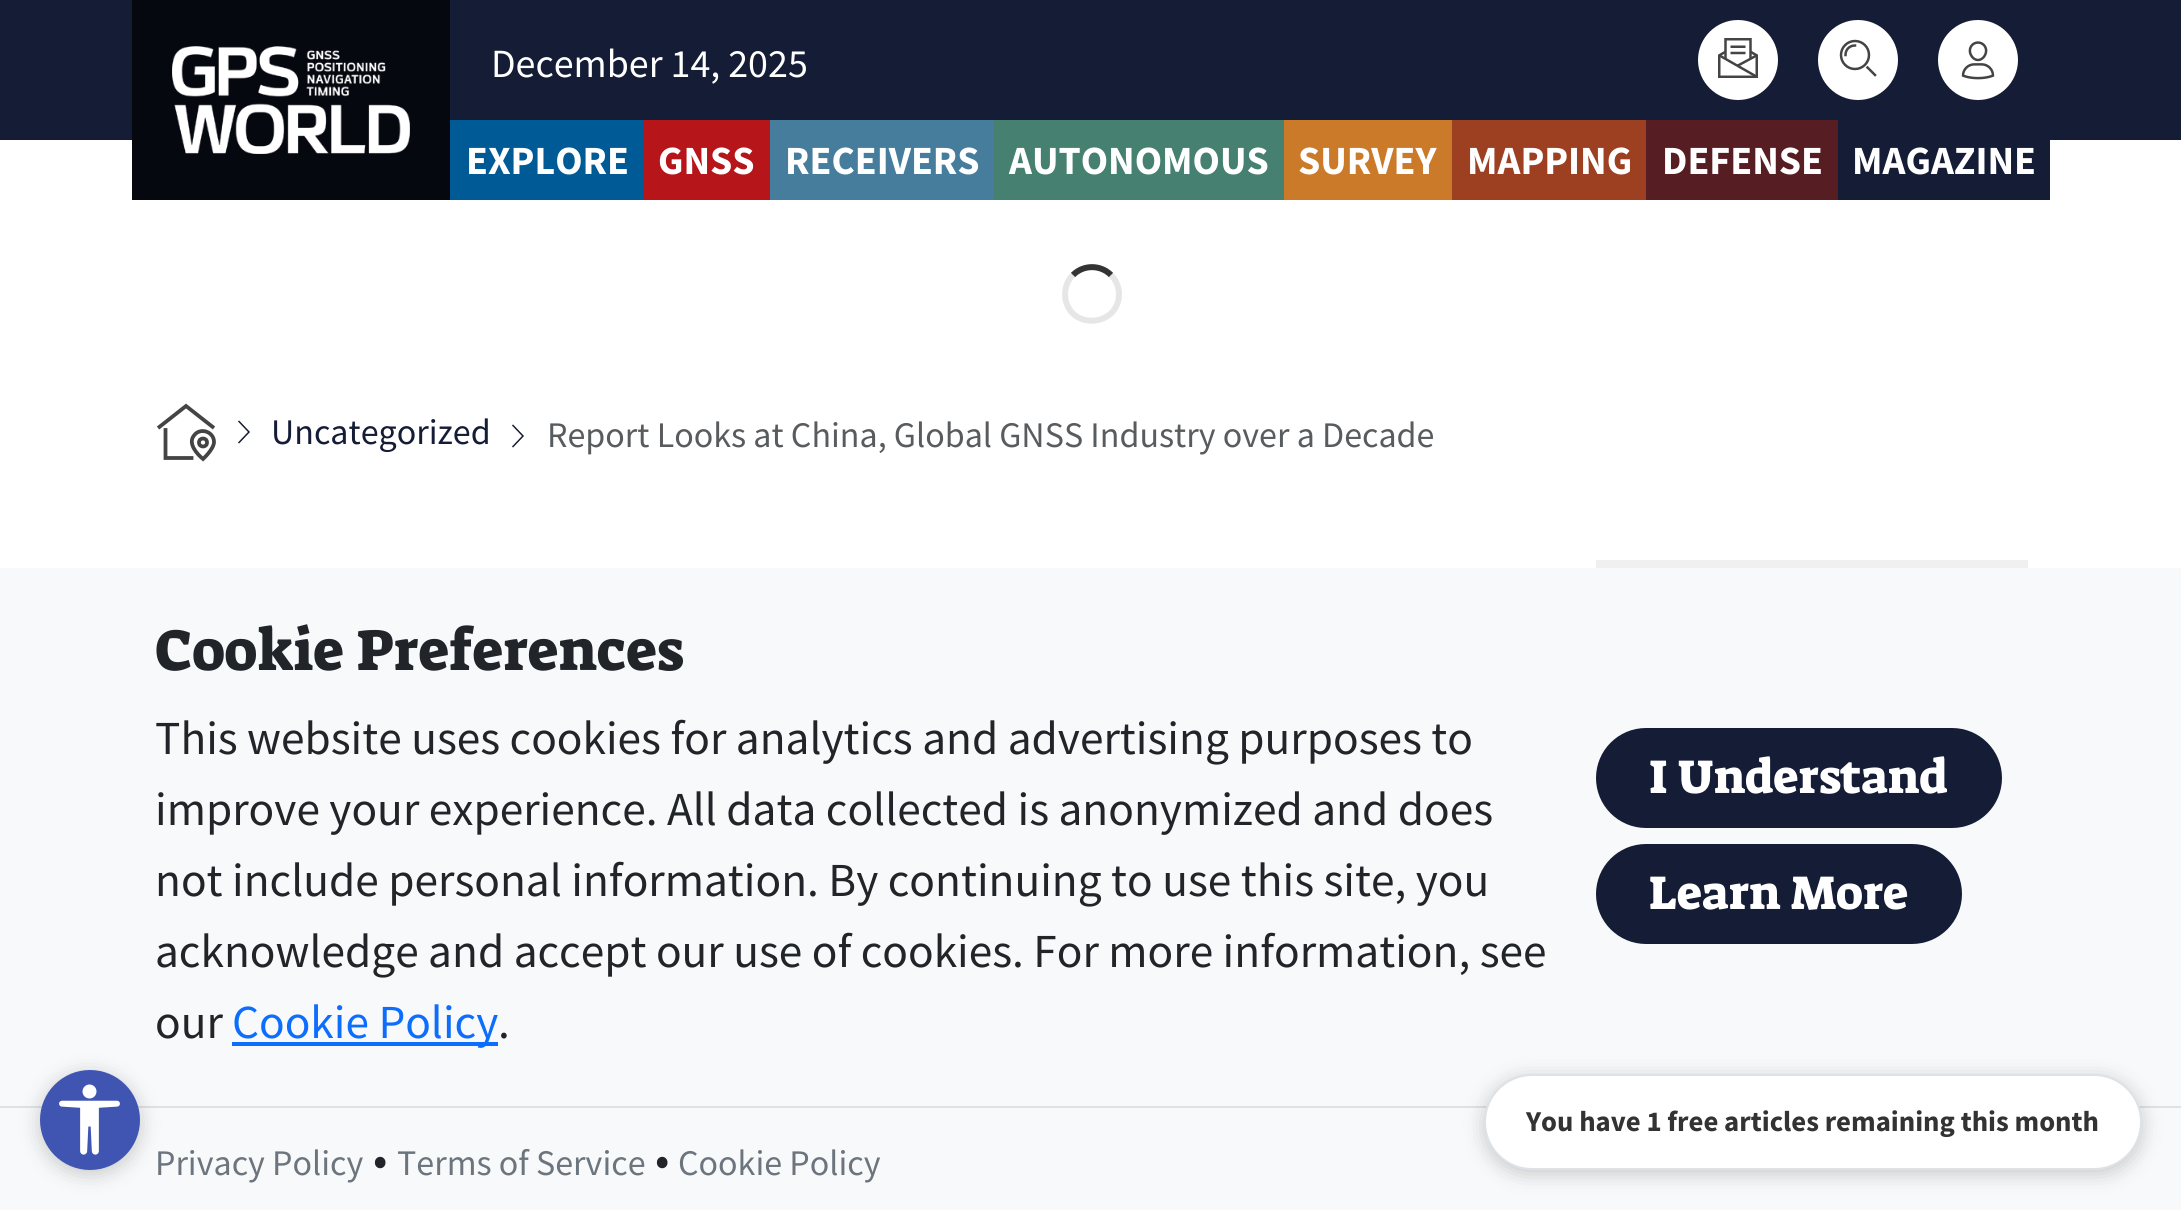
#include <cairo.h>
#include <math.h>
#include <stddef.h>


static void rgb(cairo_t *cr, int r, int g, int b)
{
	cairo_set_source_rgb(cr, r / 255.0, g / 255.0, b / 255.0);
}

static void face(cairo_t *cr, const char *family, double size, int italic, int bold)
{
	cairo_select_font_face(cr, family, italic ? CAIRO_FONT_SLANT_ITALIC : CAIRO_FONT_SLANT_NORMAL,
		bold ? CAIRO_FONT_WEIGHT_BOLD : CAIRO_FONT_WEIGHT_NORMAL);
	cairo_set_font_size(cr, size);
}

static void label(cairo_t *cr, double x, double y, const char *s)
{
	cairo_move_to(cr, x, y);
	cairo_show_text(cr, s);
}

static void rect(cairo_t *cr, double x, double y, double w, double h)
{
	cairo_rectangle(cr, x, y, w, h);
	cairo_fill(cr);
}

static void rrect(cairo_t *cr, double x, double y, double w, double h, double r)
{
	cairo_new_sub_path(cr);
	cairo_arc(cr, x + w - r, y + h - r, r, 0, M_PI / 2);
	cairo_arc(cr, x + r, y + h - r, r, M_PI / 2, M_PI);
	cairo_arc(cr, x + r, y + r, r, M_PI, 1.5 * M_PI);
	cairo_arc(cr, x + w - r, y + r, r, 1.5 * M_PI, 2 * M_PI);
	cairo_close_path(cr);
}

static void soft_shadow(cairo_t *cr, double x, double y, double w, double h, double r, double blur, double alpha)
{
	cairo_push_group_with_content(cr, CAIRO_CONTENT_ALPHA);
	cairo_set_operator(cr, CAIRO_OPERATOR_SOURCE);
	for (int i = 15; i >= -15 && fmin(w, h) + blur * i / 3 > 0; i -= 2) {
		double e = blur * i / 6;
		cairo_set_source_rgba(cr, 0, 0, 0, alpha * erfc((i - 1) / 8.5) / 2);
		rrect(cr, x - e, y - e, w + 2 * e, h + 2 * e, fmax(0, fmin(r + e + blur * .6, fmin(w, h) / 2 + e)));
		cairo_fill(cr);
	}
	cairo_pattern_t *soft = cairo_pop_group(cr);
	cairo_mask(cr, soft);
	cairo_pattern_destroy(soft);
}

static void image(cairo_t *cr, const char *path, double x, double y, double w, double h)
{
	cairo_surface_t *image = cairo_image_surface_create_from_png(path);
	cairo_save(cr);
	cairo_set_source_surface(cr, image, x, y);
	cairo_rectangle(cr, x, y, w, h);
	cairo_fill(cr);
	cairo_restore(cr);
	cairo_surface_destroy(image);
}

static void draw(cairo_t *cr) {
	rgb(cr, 255, 255, 255);
	cairo_paint(cr);
	rgb(cr, 20, 28, 54);
	rect(cr, 0, 0, 2181, 140);
	rgb(cr, 6, 8, 16);
	rect(cr, 132, 0, 318, 200);
	image(cr, "image0.png", 172, 46, 238, 108);
	face(cr, "Source Sans Pro", 40, 0, 0);
	rgb(cr, 255, 255, 255);
	label(cr, 491, 77, "December 14, 2025");
	cairo_new_path(cr);
	cairo_arc(cr, 1738, 60, 40, 0, 2 * M_PI);
	cairo_fill(cr);
	image(cr, "image1.png", 1718, 38, 40, 40);
	cairo_arc(cr, 1858, 60, 40, 0, 2 * M_PI);
	cairo_fill(cr);
	cairo_new_path(cr);
	cairo_move_to(cr, 1875, 75);
	cairo_line_to(cr, 1867.5, 67.5);
	rgb(cr, 68, 68, 68);
	cairo_set_line_width(cr, 2.5);
	cairo_set_line_cap(cr, CAIRO_LINE_CAP_SQUARE);
	cairo_stroke(cr);
	cairo_arc(cr, 1855, 55, 14, 0, 2 * M_PI);
	cairo_set_line_cap(cr, CAIRO_LINE_CAP_BUTT);
	cairo_stroke(cr);
	cairo_new_path(cr);
	cairo_move_to(cr, 1845.5, 55);
	cairo_curve_to(cr, 1845.5, 49.5, 1849.5, 45.5, 1855, 45.5);
	cairo_set_line_cap(cr, CAIRO_LINE_CAP_SQUARE);
	cairo_stroke(cr);
	rgb(cr, 255, 255, 255);
	cairo_arc(cr, 1978, 60, 40, 0, 2 * M_PI);
	cairo_fill(cr);
	image(cr, "image2.png", 1961, 41, 34, 39);
	rgb(cr, 20, 28, 54);
	rect(cr, 1838, 140, 212, 60);
	rgb(cr, 0, 90, 150);
	rect(cr, 450, 120, 194, 80);
	face(cr, "Source Sans Pro", 40, 0, 1);
	rgb(cr, 255, 255, 255);
	label(cr, 466, 174, "EXPLORE");
	rgb(cr, 182, 21, 26);
	rect(cr, 644, 120, 126, 80);
	rgb(cr, 255, 255, 255);
	label(cr, 658, 174, "GNSS");
	rgb(cr, 70, 125, 156);
	rect(cr, 770, 120, 224, 80);
	rgb(cr, 255, 255, 255);
	label(cr, 785, 174, "RECEIVERS");
	rgb(cr, 69, 128, 112);
	rect(cr, 994, 120, 290, 80);
	rgb(cr, 255, 255, 255);
	label(cr, 1009, 174, "AUTONOMOUS");
	rgb(cr, 202, 122, 41);
	rect(cr, 1284, 120, 168, 80);
	rgb(cr, 255, 255, 255);
	label(cr, 1298, 174, "SURVEY");
	rgb(cr, 157, 64, 34);
	rect(cr, 1452, 120, 194, 80);
	rgb(cr, 255, 255, 255);
	label(cr, 1467, 174, "MAPPING");
	rgb(cr, 86, 29, 35);
	rect(cr, 1646, 120, 192, 80);
	rgb(cr, 255, 255, 255);
	label(cr, 1662, 174, "DEFENSE");
	label(cr, 1852, 174, "MAGAZINE");
	cairo_new_path(cr);
	cairo_move_to(cr, 1073, 275);
	cairo_curve_to(cr, 1083.5, 264.5, 1100.5, 264.5, 1111, 275);
	rgb(cr, 51, 51, 51);
	cairo_set_line_width(cr, 6);
	cairo_set_line_cap(cr, CAIRO_LINE_CAP_BUTT);
	cairo_stroke(cr);
	cairo_new_path(cr);
	cairo_move_to(cr, 1111, 275);
	cairo_curve_to(cr, 1116, 280, 1119, 287, 1119, 294);
	cairo_curve_to(cr, 1119, 326, 1072, 331, 1065.5, 299.5);
	cairo_curve_to(cr, 1064, 290.5, 1066.5, 281, 1073, 275);
	cairo_set_source_rgba(cr, 0, 0, 0, 0.1);
	cairo_stroke(cr);
	cairo_new_path(cr);
	cairo_move_to(cr, 158, 428);
	cairo_line_to(cr, 186, 406);
	cairo_line_to(cr, 214, 428);
	rgb(cr, 68, 68, 68);
	cairo_set_line_width(cr, 3.8);
	cairo_stroke(cr);
	cairo_new_path(cr);
	cairo_move_to(cr, 165.5, 430);
	cairo_line_to(cr, 165.5, 458);
	cairo_line_to(cr, 191.5, 458);
	cairo_set_line_cap(cr, CAIRO_LINE_CAP_SQUARE);
	cairo_stroke(cr);
	cairo_arc(cr, 203, 442.5, 4, 0, 2 * M_PI);
	cairo_set_line_cap(cr, CAIRO_LINE_CAP_BUTT);
	cairo_stroke(cr);
	cairo_new_path(cr);
	cairo_move_to(cr, 214, 442);
	cairo_curve_to(cr, 214, 449, 203, 459, 203, 459);
	cairo_curve_to(cr, 197, 454, 187.5, 443.5, 194, 435.5);
	cairo_curve_to(cr, 200, 427, 214, 431.5, 214, 442);
	cairo_close_path(cr);
	cairo_set_line_cap(cr, CAIRO_LINE_CAP_SQUARE);
	cairo_stroke(cr);
	cairo_new_path(cr);
	cairo_move_to(cr, 239, 421.5);
	cairo_line_to(cr, 249, 432);
	cairo_line_to(cr, 239, 442.5);
	rgb(cr, 20, 28, 54);
	cairo_set_line_width(cr, 1.5);
	cairo_stroke(cr);
	face(cr, "Source Sans Pro", 36, 0, 0);
	label(cr, 271, 444, "Uncategorized");
	cairo_new_path(cr);
	cairo_move_to(cr, 513, 425.5);
	cairo_line_to(cr, 523, 436);
	cairo_line_to(cr, 513, 446.5);
	cairo_stroke(cr);
	rgb(cr, 89, 92, 95);
	label(cr, 547, 447, "Report Looks at China, Global GNSS Industry over a Decade");
	rgb(cr, 240, 240, 241);
	rect(cr, 1596, 560, 432, 8);
	rgb(cr, 248, 249, 250);
	rect(cr, 0, 568, 2181, 642);
	rgb(cr, 222, 226, 230);
	rect(cr, 0, 1106, 2181, 2);
	rgb(cr, 0, 0, 0);
	soft_shadow(cr, 40, 1074, 100, 100, 50, 10, 0.2);
	rgb(cr, 64, 84, 178);
	cairo_arc(cr, 90, 1120, 50, 0, 2 * M_PI);
	cairo_fill(cr);
	image(cr, "image3.png", 59, 1084, 61, 71);
	face(cr, "Suez One", 58.4, 0, 0);
	rgb(cr, 33, 37, 41);
	label(cr, 155, 670, "Cookie Preferences");
	face(cr, "Source Sans Pro", 47.35, 0, 0);
	label(cr, 155, 754, "This website uses cookies for analytics and advertising purposes to");
	label(cr, 155, 825, "improve your experience. All data collected is anonymized and does");
	label(cr, 155, 896, "not include personal information. By continuing to use this site, you");
	label(cr, 155, 967, "acknowledge and accept our use of cookies. For more information, see");
	label(cr, 155, 1038, "our");
	rgb(cr, 13, 110, 253);
	rect(cr, 232, 1042, 266, 4);
	label(cr, 232, 1038, "Cookie Policy");
	rgb(cr, 33, 37, 41);
	label(cr, 498, 1038, ".");
	rgb(cr, 20, 28, 54);
	rrect(cr, 1599, 731, 400, 94, 47);
	cairo_fill_preserve(cr);
	cairo_set_line_width(cr, 6);
	cairo_set_line_cap(cr, CAIRO_LINE_CAP_BUTT);
	cairo_stroke(cr);
	face(cr, "Suez One", 48, 0, 0);
	rgb(cr, 255, 255, 255);
	label(cr, 1649, 793, "I Understand");
	rgb(cr, 20, 28, 54);
	rrect(cr, 1599, 847, 360, 94, 47);
	cairo_fill_preserve(cr);
	cairo_stroke(cr);
	rgb(cr, 255, 255, 255);
	label(cr, 1649, 909, "Learn More");
	face(cr, "Source Sans Pro", 36, 0, 0);
	rgb(cr, 108, 117, 125);
	label(cr, 155, 1175, "Privacy Policy");
	face(cr, "Source Sans Pro", 47.35, 0, 0);
	rgb(cr, 33, 37, 41);
	label(cr, 373, 1175, "•");
	face(cr, "Source Sans Pro", 36, 0, 0);
	rgb(cr, 108, 117, 125);
	label(cr, 397, 1175, "Terms of Service");
	face(cr, "Source Sans Pro", 47.35, 0, 0);
	rgb(cr, 33, 37, 41);
	label(cr, 655, 1175, "•");
	face(cr, "Source Sans Pro", 36, 0, 0);
	rgb(cr, 108, 117, 125);
	label(cr, 678, 1175, "Cookie Policy");
	rgb(cr, 0, 0, 0);
	soft_shadow(cr, 1484, 1078, 658, 96, 48, 10, 0.2);
	rgb(cr, 255, 255, 255);
	rrect(cr, 1485, 1075, 656, 94, 47);
	cairo_fill_preserve(cr);
	rgb(cr, 222, 226, 230);
	cairo_set_line_width(cr, 2);
	cairo_stroke(cr);
	face(cr, "Source Sans Pro", 28.75, 0, 1);
	rgb(cr, 51, 51, 51);
	label(cr, 1526, 1131, "You have 1 free articles remaining this month");
}

int main(void) {
	cairo_surface_t *surface = cairo_image_surface_create(CAIRO_FORMAT_RGB24, 2181, 1210);
	cairo_t *cr = cairo_create(surface);
	cairo_font_options_t *options = cairo_font_options_create();
	cairo_font_options_set_hint_metrics(options, CAIRO_HINT_METRICS_OFF);
	cairo_font_options_set_hint_style(options, CAIRO_HINT_STYLE_NONE);
	cairo_set_font_options(cr, options);
	cairo_set_miter_limit(cr, 4);
	draw(cr);
	cairo_surface_write_to_png(surface, "render.png");
	cairo_font_options_destroy(options);
	cairo_destroy(cr);
	cairo_surface_destroy(surface);
	return 0;
}
